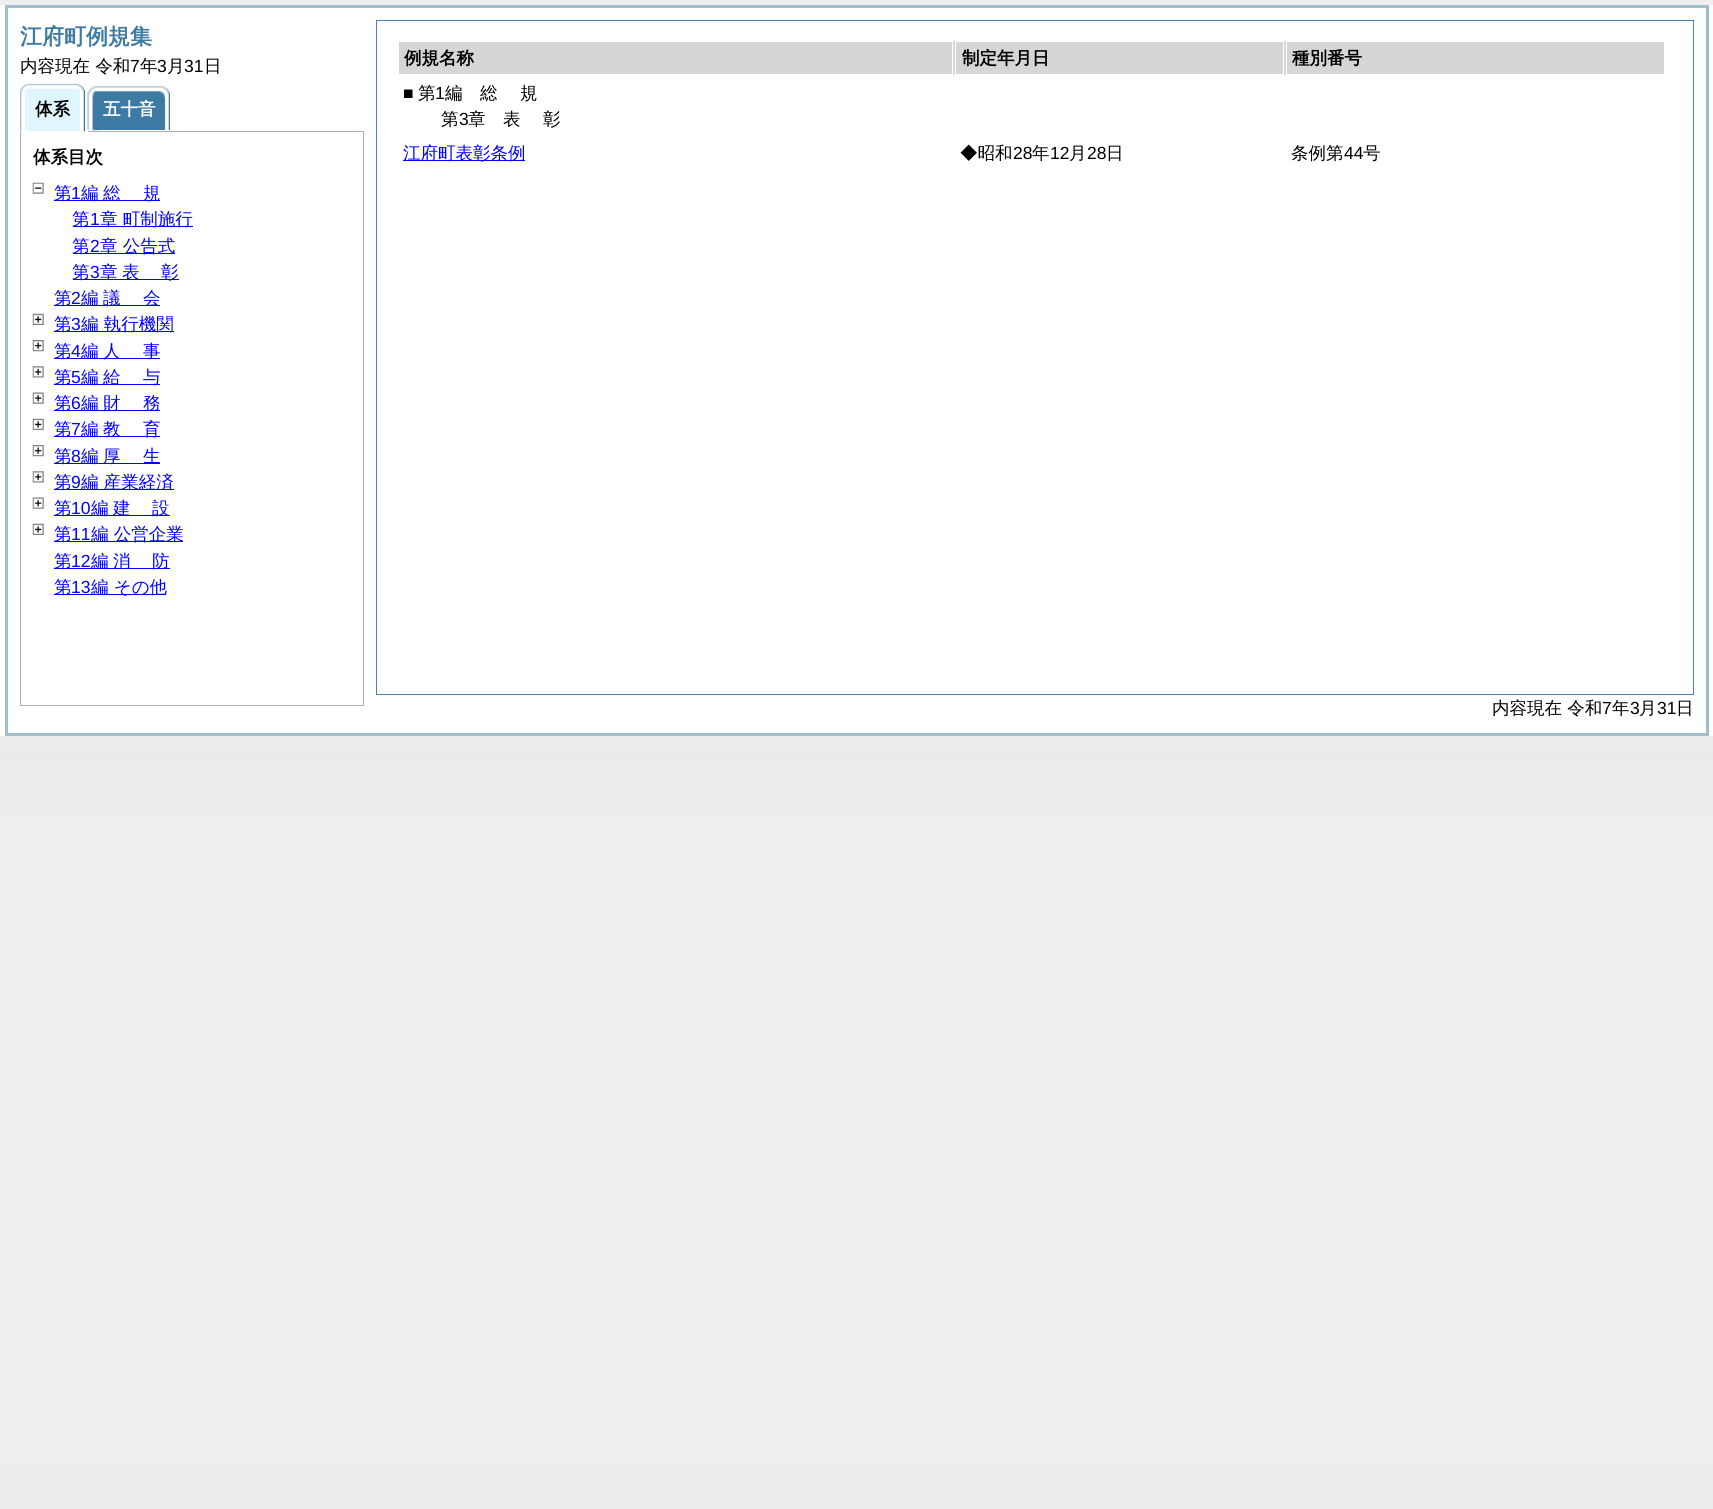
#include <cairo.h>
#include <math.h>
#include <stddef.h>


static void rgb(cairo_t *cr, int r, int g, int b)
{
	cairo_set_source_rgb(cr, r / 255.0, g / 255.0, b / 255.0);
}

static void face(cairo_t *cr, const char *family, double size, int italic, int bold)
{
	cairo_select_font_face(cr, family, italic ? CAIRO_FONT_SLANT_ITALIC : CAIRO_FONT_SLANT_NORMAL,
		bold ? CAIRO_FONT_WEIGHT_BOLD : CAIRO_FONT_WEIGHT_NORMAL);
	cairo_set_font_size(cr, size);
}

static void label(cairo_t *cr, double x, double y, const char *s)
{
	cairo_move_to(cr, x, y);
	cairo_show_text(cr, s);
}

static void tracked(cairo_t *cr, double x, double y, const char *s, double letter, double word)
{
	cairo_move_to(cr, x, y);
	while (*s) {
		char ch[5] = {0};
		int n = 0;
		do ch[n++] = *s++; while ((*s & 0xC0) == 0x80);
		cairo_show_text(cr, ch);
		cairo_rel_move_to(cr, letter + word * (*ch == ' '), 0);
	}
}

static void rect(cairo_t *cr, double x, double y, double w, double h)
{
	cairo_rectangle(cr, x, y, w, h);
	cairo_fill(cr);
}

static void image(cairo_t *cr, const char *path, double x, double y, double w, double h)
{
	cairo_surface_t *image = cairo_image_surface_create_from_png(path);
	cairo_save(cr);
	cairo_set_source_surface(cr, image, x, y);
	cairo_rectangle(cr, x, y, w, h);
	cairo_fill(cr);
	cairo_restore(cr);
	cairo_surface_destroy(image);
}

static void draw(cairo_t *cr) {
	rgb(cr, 255, 255, 255);
	cairo_paint(cr);
	image(cr, "image0.png", 0, 0, 1713, 1509);
	rgb(cr, 255, 255, 255);
	rect(cr, 0, 5, 1713, 731);
	cairo_rectangle(cr, 6.5, 6.5, 1701, 728);
	rgb(cr, 160, 191, 204);
	cairo_set_line_width(cr, 3);
	cairo_stroke(cr);
	face(cr, "WenQuanYi Zen Hei", 22, 0, 1);
	rgb(cr, 61, 122, 164);
	label(cr, 20, 44, "江府町例規集");
	face(cr, "WenQuanYi Zen Hei Medium", 17.5, 0, 0);
	rgb(cr, 0, 0, 0);
	label(cr, 20, 72, "内容現在 令和");
	face(cr, "Liberation Sans", 17.5, 0, 0);
	label(cr, 130, 72, "7");
	face(cr, "WenQuanYi Zen Hei Medium", 17.5, 0, 0);
	label(cr, 140, 72, "年");
	face(cr, "Liberation Sans", 17.5, 0, 0);
	label(cr, 157, 72, "3");
	face(cr, "WenQuanYi Zen Hei Medium", 17.5, 0, 0);
	label(cr, 167, 72, "月");
	face(cr, "Liberation Sans", 17.5, 0, 0);
	label(cr, 184, 72, "31");
	face(cr, "WenQuanYi Zen Hei Medium", 17.5, 0, 0);
	label(cr, 204, 72, "日");
	cairo_rectangle(cr, 20.5, 131.5, 343, 574);
	rgb(cr, 181, 171, 169);
	cairo_set_line_width(cr, 1);
	cairo_stroke(cr);
	rgb(cr, 255, 255, 255);
	rect(cr, 20, 131, 68, 1);
	image(cr, "image1.png", 20, 83, 8, 49);
	image(cr, "image2.png", 27, 83, 58, 49);
	face(cr, "WenQuanYi Zen Hei", 17.5, 0, 1);
	rgb(cr, 0, 0, 0);
	label(cr, 35, 115, "体系");
	image(cr, "image3.png", 87, 84, 83, 47);
	image(cr, "image4.png", 95, 84, 75, 46);
	rgb(cr, 255, 255, 255);
	label(cr, 103, 115, "五十音");
	rgb(cr, 0, 0, 0);
	label(cr, 33, 163, "体系目次");
	image(cr, "image5.png", 32, 182, 12, 12);
	rgb(cr, 0, 0, 255);
	rect(cr, 54, 200, 106, 1);
	face(cr, "WenQuanYi Zen Hei Medium", 17.5, 0, 0);
	label(cr, 54, 199, "第");
	face(cr, "Liberation Sans", 17.5, 0, 0);
	label(cr, 71, 199, "1");
	face(cr, "WenQuanYi Zen Hei Medium", 17.5, 0, 0);
	label(cr, 81, 199, "編");
	tracked(cr, 103, 199, "総", 22, 0);
	label(cr, 143, 199, "規");
	rect(cr, 73, 226, 120, 1);
	label(cr, 72, 225, "第");
	face(cr, "Liberation Sans", 17.5, 0, 0);
	label(cr, 90, 225, "1");
	face(cr, "WenQuanYi Zen Hei Medium", 17.5, 0, 0);
	label(cr, 100, 225, "章 町制施行");
	rect(cr, 73, 253, 102, 1);
	label(cr, 72, 252, "第");
	face(cr, "Liberation Sans", 17.5, 0, 0);
	label(cr, 90, 252, "2");
	face(cr, "WenQuanYi Zen Hei Medium", 17.5, 0, 0);
	label(cr, 100, 252, "章 公告式");
	rect(cr, 73, 279, 106, 1);
	label(cr, 72, 278, "第");
	face(cr, "Liberation Sans", 17.5, 0, 0);
	label(cr, 90, 278, "3");
	face(cr, "WenQuanYi Zen Hei Medium", 17.5, 0, 0);
	label(cr, 100, 278, "章");
	tracked(cr, 122, 278, "表", 22, 0);
	label(cr, 161, 278, "彰");
	rect(cr, 54, 305, 106, 1);
	label(cr, 54, 304, "第");
	face(cr, "Liberation Sans", 17.5, 0, 0);
	label(cr, 71, 304, "2");
	face(cr, "WenQuanYi Zen Hei Medium", 17.5, 0, 0);
	label(cr, 81, 304, "編");
	tracked(cr, 103, 304, "議", 22, 0);
	label(cr, 143, 304, "会");
	image(cr, "image6.png", 32, 313, 12, 12);
	rect(cr, 54, 331, 120, 1);
	label(cr, 54, 330, "第");
	face(cr, "Liberation Sans", 17.5, 0, 0);
	label(cr, 71, 330, "3");
	face(cr, "WenQuanYi Zen Hei Medium", 17.5, 0, 0);
	label(cr, 81, 330, "編 執行機関");
	image(cr, "image7.png", 32, 340, 12, 12);
	rect(cr, 54, 358, 106, 1);
	label(cr, 54, 357, "第");
	face(cr, "Liberation Sans", 17.5, 0, 0);
	label(cr, 71, 357, "4");
	face(cr, "WenQuanYi Zen Hei Medium", 17.5, 0, 0);
	label(cr, 81, 357, "編");
	tracked(cr, 103, 357, "人", 22, 0);
	label(cr, 143, 357, "事");
	image(cr, "image8.png", 32, 366, 12, 12);
	rect(cr, 54, 384, 106, 1);
	label(cr, 54, 383, "第");
	face(cr, "Liberation Sans", 17.5, 0, 0);
	label(cr, 71, 383, "5");
	face(cr, "WenQuanYi Zen Hei Medium", 17.5, 0, 0);
	label(cr, 81, 383, "編");
	tracked(cr, 103, 383, "給", 22, 0);
	label(cr, 143, 383, "与");
	image(cr, "image9.png", 32, 392, 12, 12);
	rect(cr, 54, 410, 106, 1);
	label(cr, 54, 409, "第");
	face(cr, "Liberation Sans", 17.5, 0, 0);
	label(cr, 71, 409, "6");
	face(cr, "WenQuanYi Zen Hei Medium", 17.5, 0, 0);
	label(cr, 81, 409, "編");
	tracked(cr, 103, 409, "財", 22, 0);
	label(cr, 143, 409, "務");
	image(cr, "image6.png", 32, 418, 12, 12);
	rect(cr, 54, 436, 106, 1);
	label(cr, 54, 435, "第");
	face(cr, "Liberation Sans", 17.5, 0, 0);
	label(cr, 71, 435, "7");
	face(cr, "WenQuanYi Zen Hei Medium", 17.5, 0, 0);
	label(cr, 81, 435, "編");
	tracked(cr, 103, 435, "教", 22, 0);
	label(cr, 143, 435, "育");
	image(cr, "image7.png", 32, 445, 12, 12);
	rect(cr, 54, 463, 106, 1);
	label(cr, 54, 462, "第");
	face(cr, "Liberation Sans", 17.5, 0, 0);
	label(cr, 71, 462, "8");
	face(cr, "WenQuanYi Zen Hei Medium", 17.5, 0, 0);
	label(cr, 81, 462, "編");
	tracked(cr, 103, 462, "厚", 22, 0);
	label(cr, 143, 462, "生");
	image(cr, "image8.png", 32, 471, 12, 12);
	rect(cr, 54, 489, 120, 1);
	label(cr, 54, 488, "第");
	face(cr, "Liberation Sans", 17.5, 0, 0);
	label(cr, 71, 488, "9");
	face(cr, "WenQuanYi Zen Hei Medium", 17.5, 0, 0);
	label(cr, 81, 488, "編 産業経済");
	image(cr, "image10.png", 32, 497, 12, 12);
	rect(cr, 54, 515, 116, 1);
	label(cr, 54, 514, "第");
	face(cr, "Liberation Sans", 17.5, 0, 0);
	label(cr, 71, 514, "10");
	face(cr, "WenQuanYi Zen Hei Medium", 17.5, 0, 0);
	label(cr, 91, 514, "編");
	tracked(cr, 113, 514, "建", 22, 0);
	label(cr, 152, 514, "設");
	image(cr, "image6.png", 32, 523, 12, 12);
	rect(cr, 54, 541, 129, 1);
	label(cr, 54, 540, "第");
	face(cr, "Liberation Sans", 17.5, 0, 0);
	label(cr, 71, 540, "11");
	face(cr, "WenQuanYi Zen Hei Medium", 17.5, 0, 0);
	label(cr, 91, 540, "編 公営企業");
	rect(cr, 54, 568, 116, 1);
	label(cr, 54, 567, "第");
	face(cr, "Liberation Sans", 17.5, 0, 0);
	label(cr, 71, 567, "12");
	face(cr, "WenQuanYi Zen Hei Medium", 17.5, 0, 0);
	label(cr, 91, 567, "編");
	tracked(cr, 113, 567, "消", 22, 0);
	label(cr, 152, 567, "防");
	rect(cr, 54, 594, 112, 1);
	label(cr, 54, 593, "第");
	face(cr, "Liberation Sans", 17.5, 0, 0);
	label(cr, 71, 593, "13");
	face(cr, "WenQuanYi Zen Hei Medium", 17.5, 0, 0);
	label(cr, 91, 593, "編 その他");
	cairo_rectangle(cr, 376.5, 20.5, 1317, 674);
	rgb(cr, 70, 130, 180);
	cairo_stroke(cr);
	rgb(cr, 214, 214, 214);
	rect(cr, 399, 41, 1265, 34);
	cairo_rectangle(cr, 398.5, 41.5, 554, 33);
	rgb(cr, 255, 255, 255);
	cairo_stroke(cr);
	face(cr, "WenQuanYi Zen Hei", 17.5, 0, 1);
	rgb(cr, 0, 0, 0);
	label(cr, 404, 64, "例規名称");
	cairo_rectangle(cr, 955.5, 41.5, 328, 33);
	rgb(cr, 255, 255, 255);
	cairo_stroke(cr);
	rgb(cr, 0, 0, 0);
	label(cr, 962, 64, "制定年月日");
	cairo_rectangle(cr, 1286.5, 41.5, 378, 33);
	rgb(cr, 255, 255, 255);
	cairo_stroke(cr);
	rgb(cr, 0, 0, 0);
	label(cr, 1292, 64, "種別番号");
	face(cr, "Liberation Sans", 17.5, 0, 0);
	label(cr, 403, 99, "■");
	face(cr, "WenQuanYi Zen Hei Medium", 17.5, 0, 0);
	label(cr, 418, 99, "第");
	face(cr, "Liberation Sans", 17.5, 0, 0);
	label(cr, 435, 99, "1");
	face(cr, "WenQuanYi Zen Hei Medium", 17.5, 0, 0);
	label(cr, 445, 99, "編");
	tracked(cr, 480, 99, "総", 22, 0);
	label(cr, 520, 99, "規");
	label(cr, 441, 125, "第");
	face(cr, "Liberation Sans", 17.5, 0, 0);
	label(cr, 459, 125, "3");
	face(cr, "WenQuanYi Zen Hei Medium", 17.5, 0, 0);
	label(cr, 468, 125, "章");
	tracked(cr, 503, 125, "表", 22, 0);
	label(cr, 543, 125, "彰");
	rgb(cr, 0, 0, 255);
	rect(cr, 403, 160, 122, 1);
	label(cr, 403, 159, "江府町表彰条例");
	rgb(cr, 0, 0, 0);
	label(cr, 960, 159, "◆昭和");
	face(cr, "Liberation Sans", 17.5, 0, 0);
	label(cr, 1013, 159, "28");
	face(cr, "WenQuanYi Zen Hei Medium", 17.5, 0, 0);
	label(cr, 1032, 159, "年");
	face(cr, "Liberation Sans", 17.5, 0, 0);
	label(cr, 1050, 159, "12");
	face(cr, "WenQuanYi Zen Hei Medium", 17.5, 0, 0);
	label(cr, 1069, 159, "月");
	face(cr, "Liberation Sans", 17.5, 0, 0);
	label(cr, 1087, 159, "28");
	face(cr, "WenQuanYi Zen Hei Medium", 17.5, 0, 0);
	label(cr, 1106, 159, "日");
	label(cr, 1291, 159, "条例第");
	face(cr, "Liberation Sans", 17.5, 0, 0);
	label(cr, 1344, 159, "44");
	face(cr, "WenQuanYi Zen Hei Medium", 17.5, 0, 0);
	label(cr, 1363, 159, "号");
	label(cr, 1492, 714, "内容現在 令和");
	face(cr, "Liberation Sans", 17.5, 0, 0);
	label(cr, 1602, 714, "7");
	face(cr, "WenQuanYi Zen Hei Medium", 17.5, 0, 0);
	label(cr, 1612, 714, "年");
	face(cr, "Liberation Sans", 17.5, 0, 0);
	label(cr, 1630, 714, "3");
	face(cr, "WenQuanYi Zen Hei Medium", 17.5, 0, 0);
	label(cr, 1639, 714, "月");
	face(cr, "Liberation Sans", 17.5, 0, 0);
	label(cr, 1657, 714, "31");
	face(cr, "WenQuanYi Zen Hei Medium", 17.5, 0, 0);
	label(cr, 1676, 714, "日");
}

int main(void) {
	cairo_surface_t *surface = cairo_image_surface_create(CAIRO_FORMAT_RGB24, 1713, 1509);
	cairo_t *cr = cairo_create(surface);
	cairo_font_options_t *options = cairo_font_options_create();
	cairo_font_options_set_hint_metrics(options, CAIRO_HINT_METRICS_OFF);
	cairo_font_options_set_hint_style(options, CAIRO_HINT_STYLE_NONE);
	cairo_set_font_options(cr, options);
	cairo_set_miter_limit(cr, 4);
	draw(cr);
	cairo_surface_write_to_png(surface, "render.png");
	cairo_font_options_destroy(options);
	cairo_destroy(cr);
	cairo_surface_destroy(surface);
	return 0;
}
